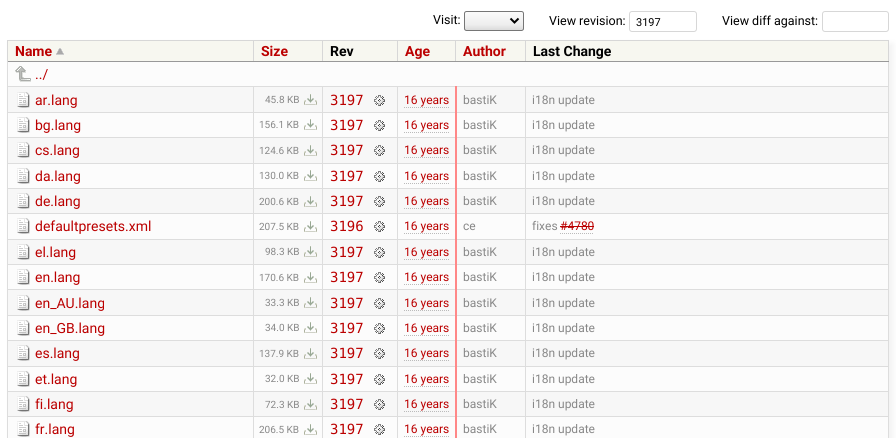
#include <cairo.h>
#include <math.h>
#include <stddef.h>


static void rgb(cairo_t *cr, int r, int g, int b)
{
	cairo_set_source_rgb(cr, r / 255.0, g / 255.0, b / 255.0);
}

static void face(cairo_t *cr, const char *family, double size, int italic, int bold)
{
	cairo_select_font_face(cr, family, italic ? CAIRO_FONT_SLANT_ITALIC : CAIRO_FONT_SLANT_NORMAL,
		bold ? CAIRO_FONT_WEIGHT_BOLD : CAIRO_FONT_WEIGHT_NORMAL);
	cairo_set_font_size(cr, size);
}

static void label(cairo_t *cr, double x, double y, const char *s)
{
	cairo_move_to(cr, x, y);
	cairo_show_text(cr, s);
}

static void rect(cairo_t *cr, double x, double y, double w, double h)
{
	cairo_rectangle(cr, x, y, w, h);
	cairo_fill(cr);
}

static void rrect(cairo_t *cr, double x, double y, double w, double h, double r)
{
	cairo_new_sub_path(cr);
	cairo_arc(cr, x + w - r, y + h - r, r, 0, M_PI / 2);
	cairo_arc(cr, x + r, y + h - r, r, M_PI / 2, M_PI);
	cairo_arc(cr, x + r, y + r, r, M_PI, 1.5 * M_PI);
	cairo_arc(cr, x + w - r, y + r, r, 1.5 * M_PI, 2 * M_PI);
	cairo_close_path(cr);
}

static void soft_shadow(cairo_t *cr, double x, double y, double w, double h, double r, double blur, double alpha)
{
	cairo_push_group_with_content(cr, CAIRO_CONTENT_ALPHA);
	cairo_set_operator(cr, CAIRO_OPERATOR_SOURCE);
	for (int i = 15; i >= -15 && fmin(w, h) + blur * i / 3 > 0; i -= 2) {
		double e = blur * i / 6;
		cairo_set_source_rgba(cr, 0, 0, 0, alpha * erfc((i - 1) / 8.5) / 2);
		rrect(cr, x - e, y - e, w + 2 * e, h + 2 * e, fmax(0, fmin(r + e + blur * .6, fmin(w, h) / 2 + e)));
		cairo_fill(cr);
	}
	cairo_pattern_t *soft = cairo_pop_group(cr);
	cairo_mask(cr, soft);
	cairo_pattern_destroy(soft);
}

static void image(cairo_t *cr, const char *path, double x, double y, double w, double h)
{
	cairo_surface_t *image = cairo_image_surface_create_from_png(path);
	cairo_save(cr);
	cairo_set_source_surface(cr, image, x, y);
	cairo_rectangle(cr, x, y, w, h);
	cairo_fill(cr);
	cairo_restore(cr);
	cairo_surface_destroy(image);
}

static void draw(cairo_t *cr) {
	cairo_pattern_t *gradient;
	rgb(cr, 255, 255, 255);
	cairo_paint(cr);
	face(cr, "Roboto", 12.5, 0, 0);
	rgb(cr, 0, 0, 0);
	label(cr, 433, 24, "Visit:");
	cairo_save(cr);
	rrect(cr, 464, 11, 60, 20, 2.5);
	cairo_clip(cr);
	gradient = cairo_pattern_create_linear(494, 30, 494, 12);
	cairo_pattern_add_color_stop_rgba(gradient, 0, 0.859, 0.859, 0.859, 1);
	cairo_pattern_add_color_stop_rgba(gradient, 0.3, 0.933, 0.933, 0.933, 1);
	cairo_pattern_add_color_stop_rgba(gradient, 1, 0.984, 0.984, 0.984, 1);
	cairo_set_source(cr, gradient);
	cairo_pattern_destroy(gradient);
	rect(cr, 464, 12, 60, 18);
	cairo_restore(cr);
	rrect(cr, 464.5, 11.5, 59, 19, 2);
	rgb(cr, 118, 118, 118);
	cairo_set_line_width(cr, 1);
	cairo_stroke(cr);
	cairo_new_path(cr);
	cairo_move_to(cr, 510.5, 18.5);
	cairo_line_to(cr, 514.5, 22.5);
	cairo_line_to(cr, 518.5, 18.5);
	rgb(cr, 0, 0, 0);
	cairo_set_line_width(cr, 2);
	cairo_stroke(cr);
	label(cr, 549, 25, "View revision:");
	rrect(cr, 629.5, 11.5, 67, 20, 2.5);
	rgb(cr, 215, 215, 215);
	cairo_set_line_width(cr, 1);
	cairo_stroke(cr);
	face(cr, "Roboto", 11, 0, 0);
	rgb(cr, 0, 0, 0);
	label(cr, 636, 26, "3197");
	face(cr, "Roboto", 12.5, 0, 0);
	label(cr, 722, 25, "View diff against:");
	rrect(cr, 822.5, 11.5, 66, 20, 2.5);
	rgb(cr, 215, 215, 215);
	cairo_stroke(cr);
	rgb(cr, 242, 242, 242);
	soft_shadow(cr, 11, 44, 882, 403, 0, 3, 1);
	rgb(cr, 247, 247, 240);
	rect(cr, 8, 41, 880, 20);
	rgb(cr, 215, 215, 215);
	rect(cr, 525, 40, 364, 1);
	rgb(cr, 221, 221, 221);
	rect(cr, 7, 86, 882, 1);
	rect(cr, 7, 112, 882, 1);
	rect(cr, 7, 137, 882, 1);
	rect(cr, 7, 163, 882, 1);
	rect(cr, 7, 188, 882, 1);
	rect(cr, 7, 213, 882, 1);
	rect(cr, 7, 239, 882, 1);
	rect(cr, 7, 264, 882, 1);
	rect(cr, 7, 289, 882, 1);
	rect(cr, 7, 315, 882, 1);
	rect(cr, 7, 340, 882, 1);
	rect(cr, 7, 366, 882, 1);
	rect(cr, 7, 391, 882, 1);
	rect(cr, 7, 416, 882, 1);
	rect(cr, 888, 61, 1, 377);
	rgb(cr, 215, 215, 215);
	rect(cr, 888, 40, 1, 22);
	rgb(cr, 153, 153, 153);
	rect(cr, 525, 61, 364, 1);
	rgb(cr, 215, 215, 215);
	rect(cr, 525, 40, 1, 22);
	rect(cr, 455, 40, 71, 1);
	rgb(cr, 153, 153, 153);
	rect(cr, 455, 61, 71, 1);
	rgb(cr, 215, 215, 215);
	rect(cr, 455, 40, 1, 22);
	rect(cr, 397, 40, 59, 1);
	rgb(cr, 153, 153, 153);
	rect(cr, 397, 61, 59, 1);
	rgb(cr, 215, 215, 215);
	rect(cr, 397, 40, 1, 22);
	rect(cr, 322, 40, 76, 1);
	rgb(cr, 153, 153, 153);
	rect(cr, 322, 61, 76, 1);
	rgb(cr, 215, 215, 215);
	rect(cr, 322, 40, 1, 22);
	rect(cr, 253, 40, 70, 1);
	rgb(cr, 153, 153, 153);
	rect(cr, 253, 61, 70, 1);
	rgb(cr, 215, 215, 215);
	rect(cr, 253, 40, 1, 22);
	rect(cr, 7, 40, 247, 1);
	rgb(cr, 221, 221, 221);
	rect(cr, 7, 61, 1, 377);
	rgb(cr, 153, 153, 153);
	rect(cr, 7, 61, 247, 1);
	rgb(cr, 215, 215, 215);
	rect(cr, 7, 40, 1, 22);
	face(cr, "Roboto", 14, 0, 1);
	rgb(cr, 187, 0, 0);
	label(cr, 15, 56, "Name");
	image(cr, "image0.png", 56, 48, 8, 7);
	label(cr, 261, 56, "Size");
	rgb(cr, 0, 0, 0);
	label(cr, 330, 56, "Rev");
	rgb(cr, 187, 0, 0);
	label(cr, 405, 56, "Age");
	label(cr, 463, 56, "Author");
	rgb(cr, 0, 0, 0);
	label(cr, 533, 56, "Last Change");
	rgb(cr, 252, 252, 252);
	rect(cr, 10, 62, 878, 24);
	image(cr, "image1.png", 15, 66, 16, 16);
	face(cr, "Roboto", 14, 0, 0);
	rgb(cr, 187, 0, 0);
	label(cr, 35, 79, "../");
	rgb(cr, 247, 247, 247);
	rect(cr, 8, 87, 880, 25);
	image(cr, "image2.png", 17, 92, 13, 16);
	rgb(cr, 187, 0, 0);
	label(cr, 35, 105, "ar.lang");
	face(cr, "Roboto", 10, 0, 0);
	rgb(cr, 136, 136, 136);
	label(cr, 265, 103, "45.8 KB");
	image(cr, "image3.png", 304, 94, 13, 11);
	face(cr, "DejaVu Sans Mono", 14, 0, 0);
	rgb(cr, 187, 0, 0);
	label(cr, 330, 105, "3197");
	image(cr, "image4.png", 374, 95, 11, 11);
	face(cr, "Roboto", 12, 0, 0);
	label(cr, 404, 104, "16 years");
	cairo_new_path(cr);
	cairo_move_to(cr, 404, 107.5);
	cairo_line_to(cr, 449, 107.5);
	rgb(cr, 187, 187, 187);
	cairo_set_dash(cr, (double[]){1, 1}, 2, 0);
	cairo_stroke(cr);
	rgb(cr, 136, 136, 136);
	label(cr, 463, 104, "bastiK");
	label(cr, 532, 104, "i18n update");
	rgb(cr, 252, 252, 252);
	rect(cr, 10, 113, 878, 24);
	image(cr, "image5.png", 17, 117, 13, 16);
	face(cr, "Roboto", 14, 0, 0);
	rgb(cr, 187, 0, 0);
	label(cr, 35, 130, "bg.lang");
	face(cr, "Roboto", 10, 0, 0);
	rgb(cr, 136, 136, 136);
	label(cr, 259, 128, "156.1 KB");
	image(cr, "image6.png", 304, 119, 13, 11);
	face(cr, "DejaVu Sans Mono", 14, 0, 0);
	rgb(cr, 187, 0, 0);
	label(cr, 330, 130, "3197");
	image(cr, "image7.png", 374, 120, 11, 11);
	face(cr, "Roboto", 12, 0, 0);
	label(cr, 404, 129, "16 years");
	cairo_new_path(cr);
	cairo_move_to(cr, 404, 132.5);
	cairo_line_to(cr, 449, 132.5);
	rgb(cr, 187, 187, 187);
	cairo_stroke(cr);
	rgb(cr, 136, 136, 136);
	label(cr, 463, 129, "bastiK");
	label(cr, 532, 129, "i18n update");
	rgb(cr, 247, 247, 247);
	rect(cr, 8, 138, 880, 25);
	image(cr, "image2.png", 17, 142, 13, 16);
	face(cr, "Roboto", 14, 0, 0);
	rgb(cr, 187, 0, 0);
	label(cr, 35, 155, "cs.lang");
	face(cr, "Roboto", 10, 0, 0);
	rgb(cr, 136, 136, 136);
	label(cr, 259, 154, "124.6 KB");
	image(cr, "image3.png", 304, 145, 13, 11);
	face(cr, "DejaVu Sans Mono", 14, 0, 0);
	rgb(cr, 187, 0, 0);
	label(cr, 330, 155, "3197");
	image(cr, "image4.png", 374, 145, 11, 11);
	face(cr, "Roboto", 12, 0, 0);
	label(cr, 404, 154, "16 years");
	cairo_new_path(cr);
	cairo_move_to(cr, 404, 157.5);
	cairo_line_to(cr, 449, 157.5);
	rgb(cr, 187, 187, 187);
	cairo_stroke(cr);
	rgb(cr, 136, 136, 136);
	label(cr, 463, 154, "bastiK");
	label(cr, 532, 154, "i18n update");
	rgb(cr, 252, 252, 252);
	rect(cr, 10, 164, 878, 24);
	image(cr, "image5.png", 17, 168, 13, 16);
	face(cr, "Roboto", 14, 0, 0);
	rgb(cr, 187, 0, 0);
	label(cr, 35, 181, "da.lang");
	face(cr, "Roboto", 10, 0, 0);
	rgb(cr, 136, 136, 136);
	label(cr, 259, 179, "130.0 KB");
	image(cr, "image6.png", 304, 170, 13, 11);
	face(cr, "DejaVu Sans Mono", 14, 0, 0);
	rgb(cr, 187, 0, 0);
	label(cr, 330, 181, "3197");
	image(cr, "image7.png", 374, 171, 11, 11);
	face(cr, "Roboto", 12, 0, 0);
	label(cr, 404, 180, "16 years");
	cairo_new_path(cr);
	cairo_move_to(cr, 404, 183.5);
	cairo_line_to(cr, 449, 183.5);
	rgb(cr, 187, 187, 187);
	cairo_stroke(cr);
	rgb(cr, 136, 136, 136);
	label(cr, 463, 180, "bastiK");
	label(cr, 532, 180, "i18n update");
	rgb(cr, 247, 247, 247);
	rect(cr, 8, 189, 880, 24);
	image(cr, "image2.png", 17, 193, 13, 16);
	face(cr, "Roboto", 14, 0, 0);
	rgb(cr, 187, 0, 0);
	label(cr, 35, 206, "de.lang");
	face(cr, "Roboto", 10, 0, 0);
	rgb(cr, 136, 136, 136);
	label(cr, 259, 205, "200.6 KB");
	image(cr, "image3.png", 304, 196, 13, 11);
	face(cr, "DejaVu Sans Mono", 14, 0, 0);
	rgb(cr, 187, 0, 0);
	label(cr, 330, 206, "3197");
	image(cr, "image4.png", 374, 196, 11, 11);
	rgb(cr, 252, 252, 252);
	rect(cr, 10, 214, 878, 25);
	rgb(cr, 247, 247, 247);
	rect(cr, 8, 240, 880, 24);
	rgb(cr, 252, 252, 252);
	rect(cr, 10, 265, 878, 24);
	rgb(cr, 247, 247, 247);
	rect(cr, 8, 290, 880, 25);
	rgb(cr, 252, 252, 252);
	rect(cr, 10, 316, 878, 24);
	rgb(cr, 247, 247, 247);
	rect(cr, 8, 341, 880, 25);
	rgb(cr, 252, 252, 252);
	rect(cr, 10, 367, 878, 24);
	rgb(cr, 247, 247, 247);
	rect(cr, 8, 392, 880, 24);
	rgb(cr, 252, 252, 252);
	rect(cr, 10, 417, 878, 21);
	rgb(cr, 255, 136, 136);
	rect(cr, 455, 238, 2, 200);
	rgb(cr, 254, 136, 136);
	rect(cr, 455, 213, 2, 27);
	rgb(cr, 255, 136, 136);
	rect(cr, 455, 86, 2, 129);
	face(cr, "Roboto", 12, 0, 0);
	rgb(cr, 187, 0, 0);
	label(cr, 404, 205, "16 years");
	cairo_new_path(cr);
	cairo_move_to(cr, 404, 208.5);
	cairo_line_to(cr, 449, 208.5);
	rgb(cr, 187, 187, 187);
	cairo_stroke(cr);
	rgb(cr, 136, 136, 136);
	label(cr, 463, 205, "bastiK");
	label(cr, 532, 205, "i18n update");
	image(cr, "image5.png", 17, 218, 13, 16);
	face(cr, "Roboto", 14, 0, 0);
	rgb(cr, 187, 0, 0);
	label(cr, 35, 231, "defaultpresets.xml");
	face(cr, "Roboto", 10, 0, 0);
	rgb(cr, 136, 136, 136);
	label(cr, 259, 230, "207.5 KB");
	image(cr, "image6.png", 304, 221, 13, 11);
	face(cr, "DejaVu Sans Mono", 14, 0, 0);
	rgb(cr, 187, 0, 0);
	label(cr, 330, 231, "3196");
	image(cr, "image7.png", 374, 221, 11, 11);
	face(cr, "Roboto", 12, 0, 0);
	label(cr, 404, 230, "16 years");
	cairo_new_path(cr);
	cairo_move_to(cr, 404, 233.5);
	cairo_line_to(cr, 449, 233.5);
	rgb(cr, 187, 187, 187);
	cairo_stroke(cr);
	rgb(cr, 136, 136, 136);
	label(cr, 463, 230, "ce");
	label(cr, 532, 230, "fixes");
	rgb(cr, 187, 0, 0);
	label(cr, 560, 230, "#4780");
	cairo_new_path(cr);
	cairo_move_to(cr, 560, 233.5);
	cairo_line_to(cr, 594, 233.5);
	rgb(cr, 187, 187, 187);
	cairo_stroke(cr);
	rgb(cr, 187, 0, 0);
	rect(cr, 560, 226, 34, 1);
	image(cr, "image2.png", 17, 244, 13, 16);
	face(cr, "Roboto", 14, 0, 0);
	label(cr, 35, 257, "el.lang");
	face(cr, "Roboto", 10, 0, 0);
	rgb(cr, 136, 136, 136);
	label(cr, 265, 255, "98.3 KB");
	image(cr, "image3.png", 304, 246, 13, 11);
	face(cr, "DejaVu Sans Mono", 14, 0, 0);
	rgb(cr, 187, 0, 0);
	label(cr, 330, 257, "3197");
	image(cr, "image4.png", 374, 247, 11, 11);
	face(cr, "Roboto", 12, 0, 0);
	label(cr, 404, 256, "16 years");
	cairo_new_path(cr);
	cairo_move_to(cr, 404, 259.5);
	cairo_line_to(cr, 449, 259.5);
	rgb(cr, 187, 187, 187);
	cairo_stroke(cr);
	rgb(cr, 136, 136, 136);
	label(cr, 463, 256, "bastiK");
	label(cr, 532, 256, "i18n update");
	image(cr, "image5.png", 17, 269, 13, 16);
	face(cr, "Roboto", 14, 0, 0);
	rgb(cr, 187, 0, 0);
	label(cr, 35, 282, "en.lang");
	face(cr, "Roboto", 10, 0, 0);
	rgb(cr, 136, 136, 136);
	label(cr, 259, 281, "170.6 KB");
	image(cr, "image6.png", 304, 272, 13, 11);
	face(cr, "DejaVu Sans Mono", 14, 0, 0);
	rgb(cr, 187, 0, 0);
	label(cr, 330, 282, "3197");
	image(cr, "image7.png", 374, 272, 11, 11);
	face(cr, "Roboto", 12, 0, 0);
	label(cr, 404, 281, "16 years");
	cairo_new_path(cr);
	cairo_move_to(cr, 404, 284.5);
	cairo_line_to(cr, 449, 284.5);
	rgb(cr, 187, 187, 187);
	cairo_stroke(cr);
	rgb(cr, 136, 136, 136);
	label(cr, 463, 281, "bastiK");
	label(cr, 532, 281, "i18n update");
	image(cr, "image2.png", 17, 295, 13, 16);
	face(cr, "Roboto", 14, 0, 0);
	rgb(cr, 187, 0, 0);
	label(cr, 35, 308, "en_AU.lang");
	face(cr, "Roboto", 10, 0, 0);
	rgb(cr, 136, 136, 136);
	label(cr, 265, 306, "33.3 KB");
	image(cr, "image3.png", 304, 297, 13, 11);
	face(cr, "DejaVu Sans Mono", 14, 0, 0);
	rgb(cr, 187, 0, 0);
	label(cr, 330, 308, "3197");
	image(cr, "image4.png", 374, 298, 11, 11);
	face(cr, "Roboto", 12, 0, 0);
	label(cr, 404, 307, "16 years");
	cairo_new_path(cr);
	cairo_move_to(cr, 404, 310.5);
	cairo_line_to(cr, 449, 310.5);
	rgb(cr, 187, 187, 187);
	cairo_stroke(cr);
	rgb(cr, 136, 136, 136);
	label(cr, 463, 307, "bastiK");
	label(cr, 532, 307, "i18n update");
	image(cr, "image5.png", 17, 320, 13, 16);
	face(cr, "Roboto", 14, 0, 0);
	rgb(cr, 187, 0, 0);
	label(cr, 35, 333, "en_GB.lang");
	face(cr, "Roboto", 10, 0, 0);
	rgb(cr, 136, 136, 136);
	label(cr, 265, 331, "34.0 KB");
	image(cr, "image6.png", 304, 322, 13, 11);
	face(cr, "DejaVu Sans Mono", 14, 0, 0);
	rgb(cr, 187, 0, 0);
	label(cr, 330, 333, "3197");
	image(cr, "image7.png", 374, 323, 11, 11);
	face(cr, "Roboto", 12, 0, 0);
	label(cr, 404, 332, "16 years");
	cairo_new_path(cr);
	cairo_move_to(cr, 404, 335.5);
	cairo_line_to(cr, 449, 335.5);
	rgb(cr, 187, 187, 187);
	cairo_stroke(cr);
	rgb(cr, 136, 136, 136);
	label(cr, 463, 332, "bastiK");
	label(cr, 532, 332, "i18n update");
	image(cr, "image2.png", 17, 345, 13, 16);
	face(cr, "Roboto", 14, 0, 0);
	rgb(cr, 187, 0, 0);
	label(cr, 35, 358, "es.lang");
	face(cr, "Roboto", 10, 0, 0);
	rgb(cr, 136, 136, 136);
	label(cr, 259, 357, "137.9 KB");
	image(cr, "image3.png", 304, 348, 13, 11);
	face(cr, "DejaVu Sans Mono", 14, 0, 0);
	rgb(cr, 187, 0, 0);
	label(cr, 330, 358, "3197");
	image(cr, "image4.png", 374, 348, 11, 11);
	face(cr, "Roboto", 12, 0, 0);
	label(cr, 404, 357, "16 years");
	cairo_new_path(cr);
	cairo_move_to(cr, 404, 360.5);
	cairo_line_to(cr, 449, 360.5);
	rgb(cr, 187, 187, 187);
	cairo_stroke(cr);
	rgb(cr, 136, 136, 136);
	label(cr, 463, 357, "bastiK");
	label(cr, 532, 357, "i18n update");
	image(cr, "image5.png", 17, 371, 13, 16);
	face(cr, "Roboto", 14, 0, 0);
	rgb(cr, 187, 0, 0);
	label(cr, 35, 384, "et.lang");
	face(cr, "Roboto", 10, 0, 0);
	rgb(cr, 136, 136, 136);
	label(cr, 265, 382, "32.0 KB");
	image(cr, "image6.png", 304, 373, 13, 11);
	face(cr, "DejaVu Sans Mono", 14, 0, 0);
	rgb(cr, 187, 0, 0);
	label(cr, 330, 384, "3197");
	image(cr, "image7.png", 374, 374, 11, 11);
	face(cr, "Roboto", 12, 0, 0);
	label(cr, 404, 383, "16 years");
	cairo_new_path(cr);
	cairo_move_to(cr, 404, 386.5);
	cairo_line_to(cr, 449, 386.5);
	rgb(cr, 187, 187, 187);
	cairo_stroke(cr);
	rgb(cr, 136, 136, 136);
	label(cr, 463, 383, "bastiK");
	label(cr, 532, 383, "i18n update");
	image(cr, "image2.png", 17, 396, 13, 16);
	face(cr, "Roboto", 14, 0, 0);
	rgb(cr, 187, 0, 0);
	label(cr, 35, 409, "fi.lang");
	face(cr, "Roboto", 10, 0, 0);
	rgb(cr, 136, 136, 136);
	label(cr, 265, 408, "72.3 KB");
	image(cr, "image3.png", 304, 399, 13, 11);
	face(cr, "DejaVu Sans Mono", 14, 0, 0);
	rgb(cr, 187, 0, 0);
	label(cr, 330, 409, "3197");
	image(cr, "image4.png", 374, 399, 11, 11);
	face(cr, "Roboto", 12, 0, 0);
	label(cr, 404, 408, "16 years");
	cairo_new_path(cr);
	cairo_move_to(cr, 404, 411.5);
	cairo_line_to(cr, 449, 411.5);
	rgb(cr, 187, 187, 187);
	cairo_stroke(cr);
	rgb(cr, 136, 136, 136);
	label(cr, 463, 408, "bastiK");
	label(cr, 532, 408, "i18n update");
	image(cr, "image5.png", 17, 421, 13, 16);
	face(cr, "Roboto", 14, 0, 0);
	rgb(cr, 187, 0, 0);
	label(cr, 35, 434, "fr.lang");
	rgb(cr, 221, 221, 221);
	rect(cr, 253, 86, 1, 352);
	face(cr, "Roboto", 10, 0, 0);
	rgb(cr, 136, 136, 136);
	label(cr, 259, 433, "206.5 KB");
	image(cr, "image6.png", 304, 424, 13, 11);
	rgb(cr, 221, 221, 221);
	rect(cr, 397, 86, 1, 352);
	rect(cr, 322, 86, 1, 352);
	face(cr, "DejaVu Sans Mono", 14, 0, 0);
	rgb(cr, 187, 0, 0);
	label(cr, 330, 434, "3197");
	image(cr, "image7.png", 374, 424, 11, 11);
	face(cr, "Roboto", 12, 0, 0);
	label(cr, 404, 433, "16 years");
	cairo_new_path(cr);
	cairo_move_to(cr, 404, 436.5);
	cairo_line_to(cr, 449, 436.5);
	rgb(cr, 187, 187, 187);
	cairo_stroke(cr);
	rgb(cr, 136, 136, 136);
	label(cr, 463, 433, "bastiK");
	rgb(cr, 221, 221, 221);
	rect(cr, 525, 86, 1, 352);
	rgb(cr, 136, 136, 136);
	label(cr, 532, 433, "i18n update");
}

int main(void) {
	cairo_surface_t *surface = cairo_image_surface_create(CAIRO_FORMAT_RGB24, 896, 438);
	cairo_t *cr = cairo_create(surface);
	cairo_font_options_t *options = cairo_font_options_create();
	cairo_font_options_set_hint_metrics(options, CAIRO_HINT_METRICS_OFF);
	cairo_font_options_set_hint_style(options, CAIRO_HINT_STYLE_NONE);
	cairo_set_font_options(cr, options);
	cairo_set_miter_limit(cr, 4);
	draw(cr);
	cairo_surface_write_to_png(surface, "render.png");
	cairo_font_options_destroy(options);
	cairo_destroy(cr);
	cairo_surface_destroy(surface);
	return 0;
}
